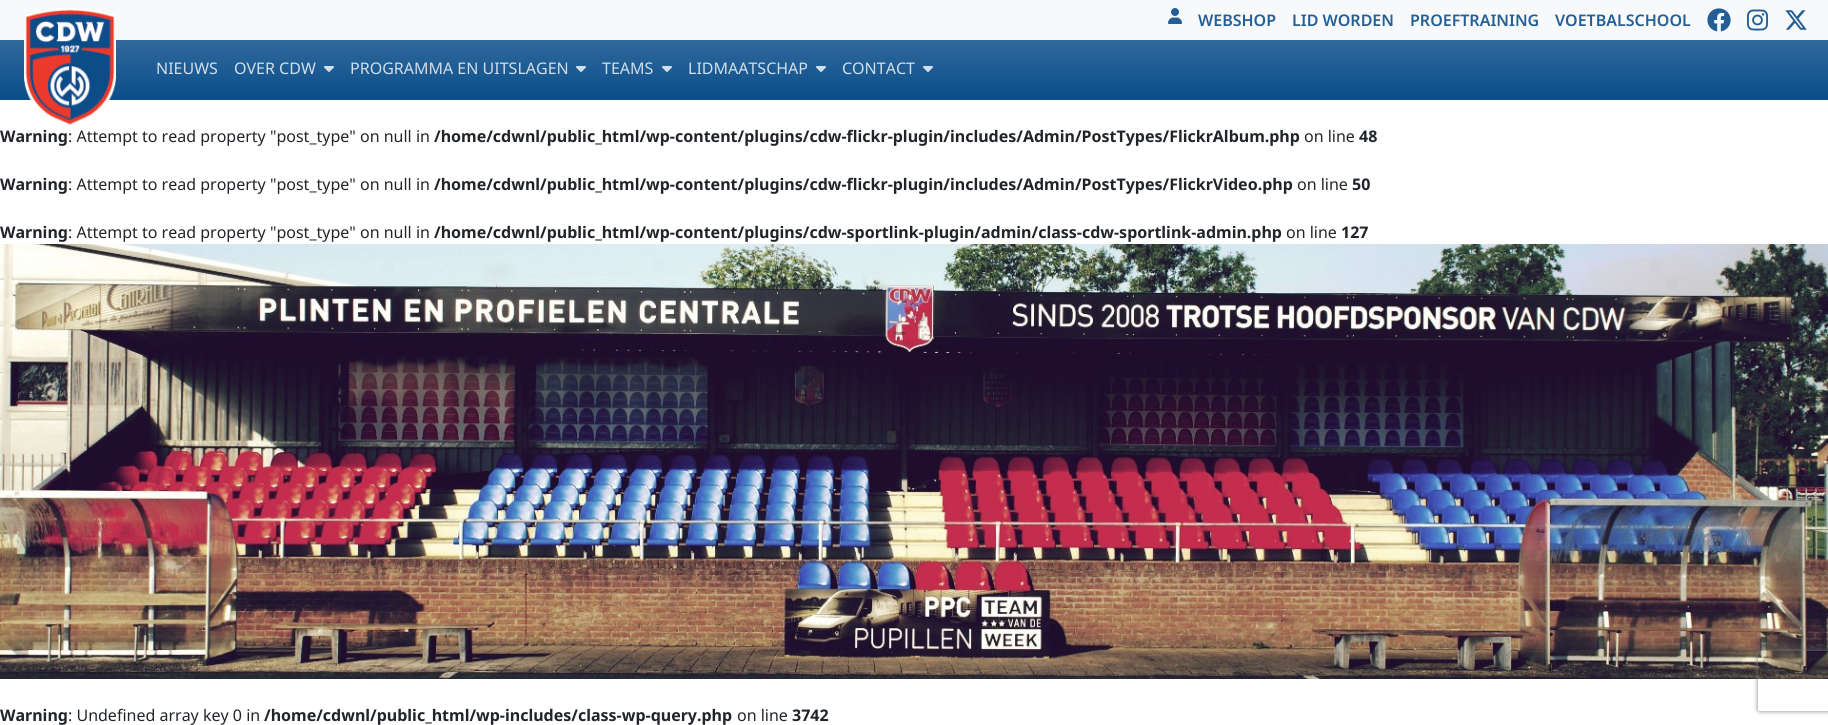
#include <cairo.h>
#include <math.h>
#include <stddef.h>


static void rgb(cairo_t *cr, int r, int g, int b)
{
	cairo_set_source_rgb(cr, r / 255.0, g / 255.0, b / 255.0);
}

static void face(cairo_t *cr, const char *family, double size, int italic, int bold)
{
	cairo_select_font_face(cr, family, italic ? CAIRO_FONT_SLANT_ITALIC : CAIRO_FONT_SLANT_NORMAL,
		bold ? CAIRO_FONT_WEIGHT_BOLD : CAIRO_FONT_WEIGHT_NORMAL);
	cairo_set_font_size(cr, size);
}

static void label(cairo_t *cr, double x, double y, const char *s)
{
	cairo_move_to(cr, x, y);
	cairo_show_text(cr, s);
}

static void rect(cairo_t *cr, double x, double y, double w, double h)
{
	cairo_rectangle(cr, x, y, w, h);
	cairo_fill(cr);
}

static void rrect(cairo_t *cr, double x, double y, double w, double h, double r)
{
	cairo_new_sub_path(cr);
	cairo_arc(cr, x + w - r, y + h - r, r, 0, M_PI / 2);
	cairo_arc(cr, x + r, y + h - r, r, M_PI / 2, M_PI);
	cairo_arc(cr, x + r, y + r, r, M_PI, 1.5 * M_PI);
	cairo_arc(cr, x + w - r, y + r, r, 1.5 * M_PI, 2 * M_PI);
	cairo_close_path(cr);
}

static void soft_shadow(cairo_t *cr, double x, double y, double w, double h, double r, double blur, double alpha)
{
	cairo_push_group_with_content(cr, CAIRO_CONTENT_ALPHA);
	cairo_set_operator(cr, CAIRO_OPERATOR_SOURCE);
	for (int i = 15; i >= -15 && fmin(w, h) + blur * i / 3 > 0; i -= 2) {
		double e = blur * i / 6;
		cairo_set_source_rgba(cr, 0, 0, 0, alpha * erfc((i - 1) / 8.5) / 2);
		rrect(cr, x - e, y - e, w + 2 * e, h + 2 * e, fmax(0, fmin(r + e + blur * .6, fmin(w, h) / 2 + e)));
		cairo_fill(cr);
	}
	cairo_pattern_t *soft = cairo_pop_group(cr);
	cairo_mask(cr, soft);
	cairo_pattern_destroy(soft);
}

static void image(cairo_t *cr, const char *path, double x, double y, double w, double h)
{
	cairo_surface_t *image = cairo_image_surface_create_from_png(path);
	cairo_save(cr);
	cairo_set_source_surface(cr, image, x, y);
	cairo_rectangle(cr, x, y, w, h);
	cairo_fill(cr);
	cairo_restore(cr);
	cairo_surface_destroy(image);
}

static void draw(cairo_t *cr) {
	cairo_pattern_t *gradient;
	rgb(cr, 255, 255, 255);
	cairo_paint(cr);
	rgb(cr, 12, 79, 139);
	rect(cr, 0, 96, 1828, 4);
	rgb(cr, 248, 249, 250);
	rect(cr, 0, 0, 1828, 40);
	image(cr, "image0.png", 1168, 8, 14, 16);
	face(cr, "Noto Sans SemiBold", 16, 0, 0);
	rgb(cr, 36, 96, 150);
	label(cr, 1198, 26, "WEBSHOP");
	label(cr, 1292, 26, "LID WORDEN");
	label(cr, 1410, 26, "PROEFTRAINING");
	label(cr, 1555, 26, "VOETBALSCHOOL");
	image(cr, "image1.png", 1707, 8, 24, 24);
	image(cr, "image2.png", 1747, 9, 21, 22);
	image(cr, "image3.png", 1785, 10, 22, 20);
	gradient = cairo_pattern_create_linear(914, 40, 914, 96);
	cairo_pattern_add_color_stop_rgba(gradient, 0, 0.188, 0.412, 0.612, 1);
	cairo_pattern_add_color_stop_rgba(gradient, 1, 0.047, 0.31, 0.545, 1);
	cairo_set_source(cr, gradient);
	cairo_pattern_destroy(gradient);
	rect(cr, 0, 40, 1828, 56);
	image(cr, "image4.png", 24, 8, 92, 117);
	face(cr, "Noto Sans", 16, 0, 0);
	rgb(cr, 210, 222, 233);
	label(cr, 156, 74, "NIEUWS");
	label(cr, 234, 74, "OVER CDW");
	image(cr, "image5.png", 324, 66, 10, 6);
	label(cr, 350, 74, "PROGRAMMA EN UITSLAGEN");
	image(cr, "image5.png", 576, 66, 10, 6);
	label(cr, 602, 74, "TEAMS");
	image(cr, "image5.png", 662, 66, 10, 6);
	label(cr, 688, 74, "LIDMAATSCHAP");
	image(cr, "image5.png", 816, 66, 10, 6);
	label(cr, 842, 74, "CONTACT");
	image(cr, "image5.png", 923, 66, 10, 6);
	face(cr, "Noto Sans", 16, 0, 1);
	rgb(cr, 33, 37, 41);
	label(cr, 0, 142, "Warning");
	face(cr, "Noto Sans", 16, 0, 0);
	label(cr, 68, 142, ": Attempt to read property \"post_type\" on null in");
	face(cr, "Noto Sans", 16, 0, 1);
	label(cr, 434, 142, "/home/cdwnl/public_html/wp-content/plugins/cdw-flickr-plugin/includes/Admin/PostTypes/FlickrAlbum.php");
	face(cr, "Noto Sans", 16, 0, 0);
	label(cr, 1304, 142, "on line");
	face(cr, "Noto Sans", 16, 0, 1);
	label(cr, 1359, 142, "48");
	label(cr, 0, 190, "Warning");
	face(cr, "Noto Sans", 16, 0, 0);
	label(cr, 68, 190, ": Attempt to read property \"post_type\" on null in");
	face(cr, "Noto Sans", 16, 0, 1);
	label(cr, 434, 190, "/home/cdwnl/public_html/wp-content/plugins/cdw-flickr-plugin/includes/Admin/PostTypes/FlickrVideo.php");
	face(cr, "Noto Sans", 16, 0, 0);
	label(cr, 1297, 190, "on line");
	face(cr, "Noto Sans", 16, 0, 1);
	label(cr, 1352, 190, "50");
	label(cr, 0, 238, "Warning");
	face(cr, "Noto Sans", 16, 0, 0);
	label(cr, 68, 238, ": Attempt to read property \"post_type\" on null in");
	face(cr, "Noto Sans", 16, 0, 1);
	label(cr, 434, 238, "/home/cdwnl/public_html/wp-content/plugins/cdw-sportlink-plugin/admin/class-cdw-sportlink-admin.php");
	face(cr, "Noto Sans", 16, 0, 0);
	label(cr, 1286, 238, "on line");
	face(cr, "Noto Sans", 16, 0, 1);
	label(cr, 1341, 238, "127");
	image(cr, "image6.png", 0, 244, 1828, 435);
	label(cr, 0, 721, "Warning");
	face(cr, "Noto Sans", 16, 0, 0);
	label(cr, 68, 721, ": Undefined array key 0 in");
	face(cr, "Noto Sans", 16, 0, 1);
	label(cr, 264, 721, "/home/cdwnl/public_html/wp-includes/class-wp-query.php");
	face(cr, "Noto Sans", 16, 0, 0);
	label(cr, 737, 721, "on line");
	face(cr, "Noto Sans", 16, 0, 1);
	label(cr, 792, 721, "3742");
	cairo_save(cr);
	cairo_set_fill_rule(cr, CAIRO_FILL_RULE_EVEN_ODD);
	cairo_new_path(cr);
	cairo_move_to(cr, 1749, 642);
	cairo_line_to(cr, 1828, 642);
	cairo_line_to(cr, 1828, 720);
	cairo_line_to(cr, 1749, 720);
	cairo_close_path(cr);
	cairo_move_to(cr, 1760, 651);
	cairo_line_to(cr, 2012, 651);
	cairo_curve_to(cr, 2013, 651, 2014, 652, 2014, 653);
	cairo_line_to(cr, 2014, 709);
	cairo_curve_to(cr, 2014, 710, 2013, 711, 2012, 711);
	cairo_line_to(cr, 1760, 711);
	cairo_curve_to(cr, 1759, 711, 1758, 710, 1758, 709);
	cairo_line_to(cr, 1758, 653);
	cairo_curve_to(cr, 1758, 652, 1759, 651, 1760, 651);
	cairo_close_path(cr);
	cairo_clip(cr);
	rgb(cr, 128, 128, 128);
	soft_shadow(cr, 1758, 651, 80, 60, 2, 2.5, 1);
	cairo_restore(cr);
}

int main(void) {
	cairo_surface_t *surface = cairo_image_surface_create(CAIRO_FORMAT_RGB24, 1828, 725);
	cairo_t *cr = cairo_create(surface);
	cairo_font_options_t *options = cairo_font_options_create();
	cairo_font_options_set_hint_metrics(options, CAIRO_HINT_METRICS_OFF);
	cairo_font_options_set_hint_style(options, CAIRO_HINT_STYLE_NONE);
	cairo_set_font_options(cr, options);
	cairo_set_miter_limit(cr, 4);
	draw(cr);
	cairo_surface_write_to_png(surface, "render.png");
	cairo_font_options_destroy(options);
	cairo_destroy(cr);
	cairo_surface_destroy(surface);
	return 0;
}
